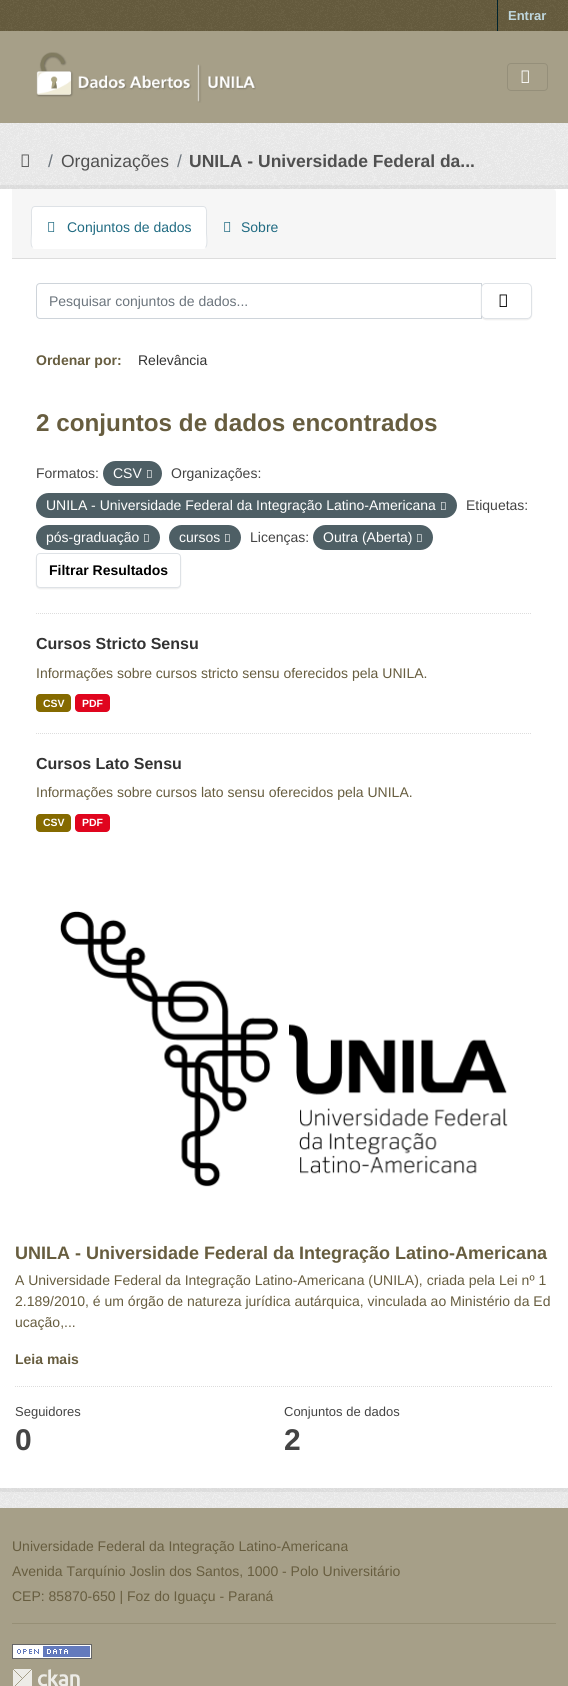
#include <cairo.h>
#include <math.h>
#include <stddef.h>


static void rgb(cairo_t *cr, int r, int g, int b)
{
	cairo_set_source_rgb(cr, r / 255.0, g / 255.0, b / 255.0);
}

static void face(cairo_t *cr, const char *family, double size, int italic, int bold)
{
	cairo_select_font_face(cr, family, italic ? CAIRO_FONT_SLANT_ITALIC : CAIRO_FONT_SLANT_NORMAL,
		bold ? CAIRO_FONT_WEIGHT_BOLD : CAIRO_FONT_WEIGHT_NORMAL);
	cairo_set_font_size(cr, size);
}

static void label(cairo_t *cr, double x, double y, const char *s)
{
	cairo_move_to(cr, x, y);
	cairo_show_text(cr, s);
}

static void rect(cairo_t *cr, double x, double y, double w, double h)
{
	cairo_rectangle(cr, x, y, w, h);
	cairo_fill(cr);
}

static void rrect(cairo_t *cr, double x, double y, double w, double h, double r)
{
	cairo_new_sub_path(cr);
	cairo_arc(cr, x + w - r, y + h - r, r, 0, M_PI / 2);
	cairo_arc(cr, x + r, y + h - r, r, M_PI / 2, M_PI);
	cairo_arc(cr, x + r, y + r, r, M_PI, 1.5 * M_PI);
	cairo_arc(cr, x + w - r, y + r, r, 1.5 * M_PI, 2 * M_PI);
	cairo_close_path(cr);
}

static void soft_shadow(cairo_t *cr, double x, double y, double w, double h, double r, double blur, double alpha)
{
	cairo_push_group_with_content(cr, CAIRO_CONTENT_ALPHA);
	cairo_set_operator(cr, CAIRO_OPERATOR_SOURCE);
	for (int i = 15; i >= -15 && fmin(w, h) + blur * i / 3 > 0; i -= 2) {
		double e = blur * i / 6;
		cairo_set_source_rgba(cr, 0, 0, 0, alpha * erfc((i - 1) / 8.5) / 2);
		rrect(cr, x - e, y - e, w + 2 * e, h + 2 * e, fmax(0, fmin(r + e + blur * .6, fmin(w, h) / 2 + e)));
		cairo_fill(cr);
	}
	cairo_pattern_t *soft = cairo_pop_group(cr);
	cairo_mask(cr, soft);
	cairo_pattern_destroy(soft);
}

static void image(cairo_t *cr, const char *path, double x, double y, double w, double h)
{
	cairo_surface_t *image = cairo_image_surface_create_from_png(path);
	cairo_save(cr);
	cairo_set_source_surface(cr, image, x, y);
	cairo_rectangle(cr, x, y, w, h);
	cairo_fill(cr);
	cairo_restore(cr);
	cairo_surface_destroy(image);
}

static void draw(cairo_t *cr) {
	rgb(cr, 103, 93, 63);
	cairo_paint(cr);
	image(cr, "image0.png", 0, 0, 568, 31);
	rgb(cr, 0, 35, 46);
	rect(cr, 497, 0, 1, 31);
	face(cr, "Liberation Sans", 13, 0, 1);
	rgb(cr, 191, 215, 222);
	label(cr, 508, 20, "Entrar");
	rgb(cr, 166, 159, 136);
	rect(cr, 0, 31, 568, 92);
	image(cr, "image1.png", 36, 52, 220, 51);
	rrect(cr, 507.5, 63.5, 40, 27, 3.5);
	rgb(cr, 149, 143, 122);
	cairo_set_line_width(cr, 1);
	cairo_stroke(cr);
	image(cr, "image2.png", 521, 70, 8, 13);
	rgb(cr, 238, 238, 238);
	rect(cr, 0, 123, 568, 1385);
	image(cr, "image3.png", 0, 123, 568, 1385);
	image(cr, "image4.png", 21, 154, 8, 13);
	face(cr, "Liberation Sans", 17.5, 0, 0);
	rgb(cr, 108, 117, 125);
	label(cr, 48, 167, "/");
	rgb(cr, 80, 80, 80);
	label(cr, 61, 167, "Organizações");
	rgb(cr, 108, 117, 125);
	label(cr, 177, 167, "/");
	face(cr, "Liberation Sans", 17.5, 0, 1);
	rgb(cr, 80, 80, 80);
	label(cr, 189, 167, "UNILA - Universidade Federal da...");
	cairo_rectangle(cr, -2, 187, 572, 1303);
	cairo_set_source_rgba(cr, 0, 0, 0, 0.05);
	cairo_set_line_width(cr, 4);
	cairo_stroke(cr);
	rgb(cr, 255, 255, 255);
	rect(cr, 0, 189, 568, 1299);
	rgb(cr, 246, 246, 246);
	cairo_new_path(cr);
	cairo_move_to(cr, 12, 189);
	cairo_line_to(cr, 553, 189);
	cairo_curve_to(cr, 554.5, 189, 556, 190.5, 556, 192);
	cairo_line_to(cr, 556, 259);
	cairo_line_to(cr, 12, 259);
	cairo_close_path(cr);
	cairo_fill(cr);
	rgb(cr, 221, 221, 221);
	rect(cr, 12, 258, 544, 1);
	rgb(cr, 255, 255, 255);
	rrect(cr, 31, 206, 176, 43, 4);
	cairo_fill(cr);
	cairo_new_path(cr);
	cairo_move_to(cr, 32.5, 247.5);
	cairo_curve_to(cr, 30, 245, 31.5, 236, 31.5, 233.5);
	cairo_line_to(cr, 31.5, 216);
	cairo_curve_to(cr, 31.5, 213, 30.5, 206.5, 35, 206.5);
	cairo_line_to(cr, 203, 206.5);
	cairo_curve_to(cr, 207.5, 206.5, 206.5, 213, 206.5, 216);
	cairo_line_to(cr, 206.5, 233.5);
	cairo_curve_to(cr, 206.5, 236, 208, 245, 205.5, 247.5);
	rgb(cr, 222, 226, 230);
	cairo_set_line_width(cr, 1);
	cairo_stroke(cr);
	image(cr, "image5.png", 48, 222, 7, 10);
	face(cr, "Liberation Sans", 14, 0, 0);
	rgb(cr, 32, 107, 130);
	label(cr, 67, 232, "Conjuntos de dados");
	image(cr, "image6.png", 224, 222, 7, 10);
	label(cr, 241, 232, "Sobre");
	cairo_new_path(cr);
	cairo_move_to(cr, 36, 613.5);
	cairo_line_to(cr, 532, 613.5);
	rgb(cr, 221, 221, 221);
	cairo_set_dash(cr, (double[]){1, 1}, 2, 0);
	cairo_stroke(cr);
	cairo_new_path(cr);
	cairo_move_to(cr, 40, 283.5);
	cairo_line_to(cr, 481.5, 283.5);
	cairo_line_to(cr, 481.5, 318.5);
	cairo_line_to(cr, 40, 318.5);
	cairo_curve_to(cr, 38, 318.5, 36.5, 317, 36.5, 315);
	cairo_line_to(cr, 36.5, 287);
	cairo_curve_to(cr, 36.5, 285, 38, 283.5, 40, 283.5);
	cairo_close_path(cr);
	rgb(cr, 206, 212, 218);
	cairo_set_dash(cr, NULL, 0, 0);
	cairo_stroke(cr);
	rgb(cr, 108, 117, 125);
	label(cr, 49, 306, "Pesquisar conjuntos de dados...");
	rgb(cr, 0, 0, 0);
	soft_shadow(cr, 481, 284, 51, 36, 5, 0.5, 0.07);
	rgb(cr, 255, 255, 255);
	rrect(cr, 481.5, 283.5, 50, 35, 4.5);
	cairo_fill_preserve(cr);
	rgb(cr, 222, 226, 230);
	cairo_stroke(cr);
	image(cr, "image7.png", 499, 294, 8, 13);
	face(cr, "Liberation Sans", 14, 0, 1);
	rgb(cr, 103, 93, 63);
	label(cr, 36, 365, "Ordenar por:");
	face(cr, "Liberation Sans", 14, 0, 0);
	rgb(cr, 51, 51, 51);
	label(cr, 138, 365, "Relevância");
	face(cr, "Liberation Sans", 24.25, 0, 1);
	rgb(cr, 103, 93, 63);
	label(cr, 36, 431, "2 conjuntos de dados encontrados");
	face(cr, "Liberation Sans", 14, 0, 0);
	rgb(cr, 68, 68, 68);
	label(cr, 36, 478, "Formatos:");
	rgb(cr, 78, 95, 101);
	rrect(cr, 103, 461, 59, 25, 12.5);
	cairo_fill(cr);
	rgb(cr, 255, 255, 255);
	label(cr, 113, 478, "CSV");
	image(cr, "image8.png", 147, 470, 5, 8);
	rgb(cr, 68, 68, 68);
	label(cr, 171, 478, "Organizações:");
	rgb(cr, 78, 95, 101);
	rrect(cr, 36, 493, 421, 25, 12.5);
	cairo_fill(cr);
	rgb(cr, 255, 255, 255);
	label(cr, 46, 510, "UNILA - Universidade Federal da Integração Latino-Americana");
	image(cr, "image8.png", 441, 502, 5, 8);
	rgb(cr, 68, 68, 68);
	label(cr, 466, 510, "Etiquetas:");
	rgb(cr, 78, 95, 101);
	rrect(cr, 36, 525, 124, 25, 12.5);
	cairo_fill(cr);
	rgb(cr, 255, 255, 255);
	label(cr, 46, 542, "pós-graduação");
	image(cr, "image8.png", 144, 534, 5, 8);
	rgb(cr, 78, 95, 101);
	rrect(cr, 169, 525, 72, 25, 12.5);
	cairo_fill(cr);
	rgb(cr, 255, 255, 255);
	label(cr, 179, 542, "cursos");
	image(cr, "image8.png", 225, 534, 5, 8);
	rgb(cr, 68, 68, 68);
	label(cr, 250, 542, "Licenças:");
	rgb(cr, 78, 95, 101);
	rrect(cr, 313, 525, 120, 25, 12.5);
	cairo_fill(cr);
	rgb(cr, 255, 255, 255);
	label(cr, 323, 542, "Outra (Aberta)");
	image(cr, "image8.png", 417, 534, 5, 8);
	rgb(cr, 0, 0, 0);
	soft_shadow(cr, 36, 554, 145, 35, 4, 0.5, 0.07);
	rgb(cr, 255, 255, 255);
	rrect(cr, 36.5, 553.5, 144, 34, 3.5);
	cairo_fill_preserve(cr);
	rgb(cr, 222, 226, 230);
	cairo_stroke(cr);
	face(cr, "Liberation Sans", 14, 0, 1);
	rgb(cr, 0, 0, 0);
	label(cr, 49, 575, "Filtrar Resultados");
	cairo_new_path(cr);
	cairo_move_to(cr, 36, 733.5);
	cairo_line_to(cr, 532, 733.5);
	rgb(cr, 221, 221, 221);
	cairo_set_dash(cr, (double[]){1, 1}, 2, 0);
	cairo_stroke(cr);
	face(cr, "Liberation Sans", 16, 0, 1);
	rgb(cr, 51, 51, 51);
	label(cr, 36, 649, "Cursos Stricto Sensu");
	face(cr, "Liberation Sans", 14, 0, 0);
	rgb(cr, 103, 93, 63);
	label(cr, 36, 678, "Informações sobre cursos stricto sensu oferecidos pela UNILA.");
	rgb(cr, 133, 106, 0);
	rrect(cr, 36, 694, 35, 18, 4);
	cairo_fill(cr);
	face(cr, "Liberation Sans", 10.5, 0, 1);
	rgb(cr, 255, 255, 255);
	label(cr, 43, 707, "CSV");
	rgb(cr, 224, 5, 30);
	rrect(cr, 75, 694, 35, 18, 4);
	cairo_fill(cr);
	rgb(cr, 255, 255, 255);
	label(cr, 82, 707, "PDF");
	face(cr, "Liberation Sans", 16, 0, 1);
	rgb(cr, 51, 51, 51);
	label(cr, 36, 769, "Cursos Lato Sensu");
	face(cr, "Liberation Sans", 14, 0, 0);
	rgb(cr, 103, 93, 63);
	label(cr, 36, 797, "Informações sobre cursos lato sensu oferecidos pela UNILA.");
	rgb(cr, 133, 106, 0);
	rrect(cr, 36, 814, 35, 18, 4);
	cairo_fill(cr);
	face(cr, "Liberation Sans", 10.5, 0, 1);
	rgb(cr, 255, 255, 255);
	label(cr, 43, 826, "CSV");
	rgb(cr, 224, 5, 30);
	rrect(cr, 75, 814, 35, 18, 4);
	cairo_fill(cr);
	rgb(cr, 255, 255, 255);
	label(cr, 82, 826, "PDF");
	image(cr, "image9.png", 60, 911, 448, 276);
	face(cr, "Liberation Sans", 18, 0, 1);
	rgb(cr, 103, 93, 63);
	label(cr, 15, 1259, "UNILA - Universidade Federal da Integração Latino-Americana");
	face(cr, "Liberation Sans", 14, 0, 0);
	label(cr, 15, 1285, "A Universidade Federal da Integração Latino-Americana (UNILA), criada pela Lei nº 1");
	label(cr, 15, 1306, "2.189/2010, é um órgão de natureza jurídica autárquica, vinculada ao Ministério da Ed");
	label(cr, 15, 1327, "ucação,...");
	face(cr, "Liberation Sans", 14, 0, 1);
	label(cr, 15, 1364, "Leia mais");
	cairo_new_path(cr);
	cairo_move_to(cr, 15, 1386.5);
	cairo_line_to(cr, 552, 1386.5);
	rgb(cr, 221, 221, 221);
	cairo_stroke(cr);
	face(cr, "Liberation Sans", 13, 0, 0);
	rgb(cr, 68, 68, 68);
	label(cr, 15, 1416, "Seguidores");
	face(cr, "Liberation Sans", 30, 0, 1);
	label(cr, 15, 1450, "0");
	face(cr, "Liberation Sans", 13, 0, 0);
	label(cr, 284, 1416, "Conjuntos de dados");
	face(cr, "Liberation Sans", 30, 0, 1);
	label(cr, 284, 1450, "2");
	rgb(cr, 166, 159, 136);
	rect(cr, 0, 1508, 568, 178);
	face(cr, "Liberation Sans", 14, 0, 0);
	rgb(cr, 103, 93, 63);
	label(cr, 12, 1551, "Universidade Federal da Integração Latino-Americana");
	label(cr, 12, 1576, "Avenida Tarquínio Joslin dos Santos, 1000 - Polo Universitário");
	label(cr, 12, 1601, "CEP: 85870-650 | Foz do Iguaçu - Paraná");
	rgb(cr, 150, 143, 118);
	rect(cr, 12, 1623, 544, 1);
	image(cr, "image10.png", 12, 1644, 80, 15);
	image(cr, "image11.png", 13, 1669, 67, 17);
}

int main(void) {
	cairo_surface_t *surface = cairo_image_surface_create(CAIRO_FORMAT_RGB24, 568, 1686);
	cairo_t *cr = cairo_create(surface);
	cairo_font_options_t *options = cairo_font_options_create();
	cairo_font_options_set_hint_metrics(options, CAIRO_HINT_METRICS_OFF);
	cairo_font_options_set_hint_style(options, CAIRO_HINT_STYLE_NONE);
	cairo_set_font_options(cr, options);
	cairo_set_miter_limit(cr, 4);
	draw(cr);
	cairo_surface_write_to_png(surface, "render.png");
	cairo_font_options_destroy(options);
	cairo_destroy(cr);
	cairo_surface_destroy(surface);
	return 0;
}
